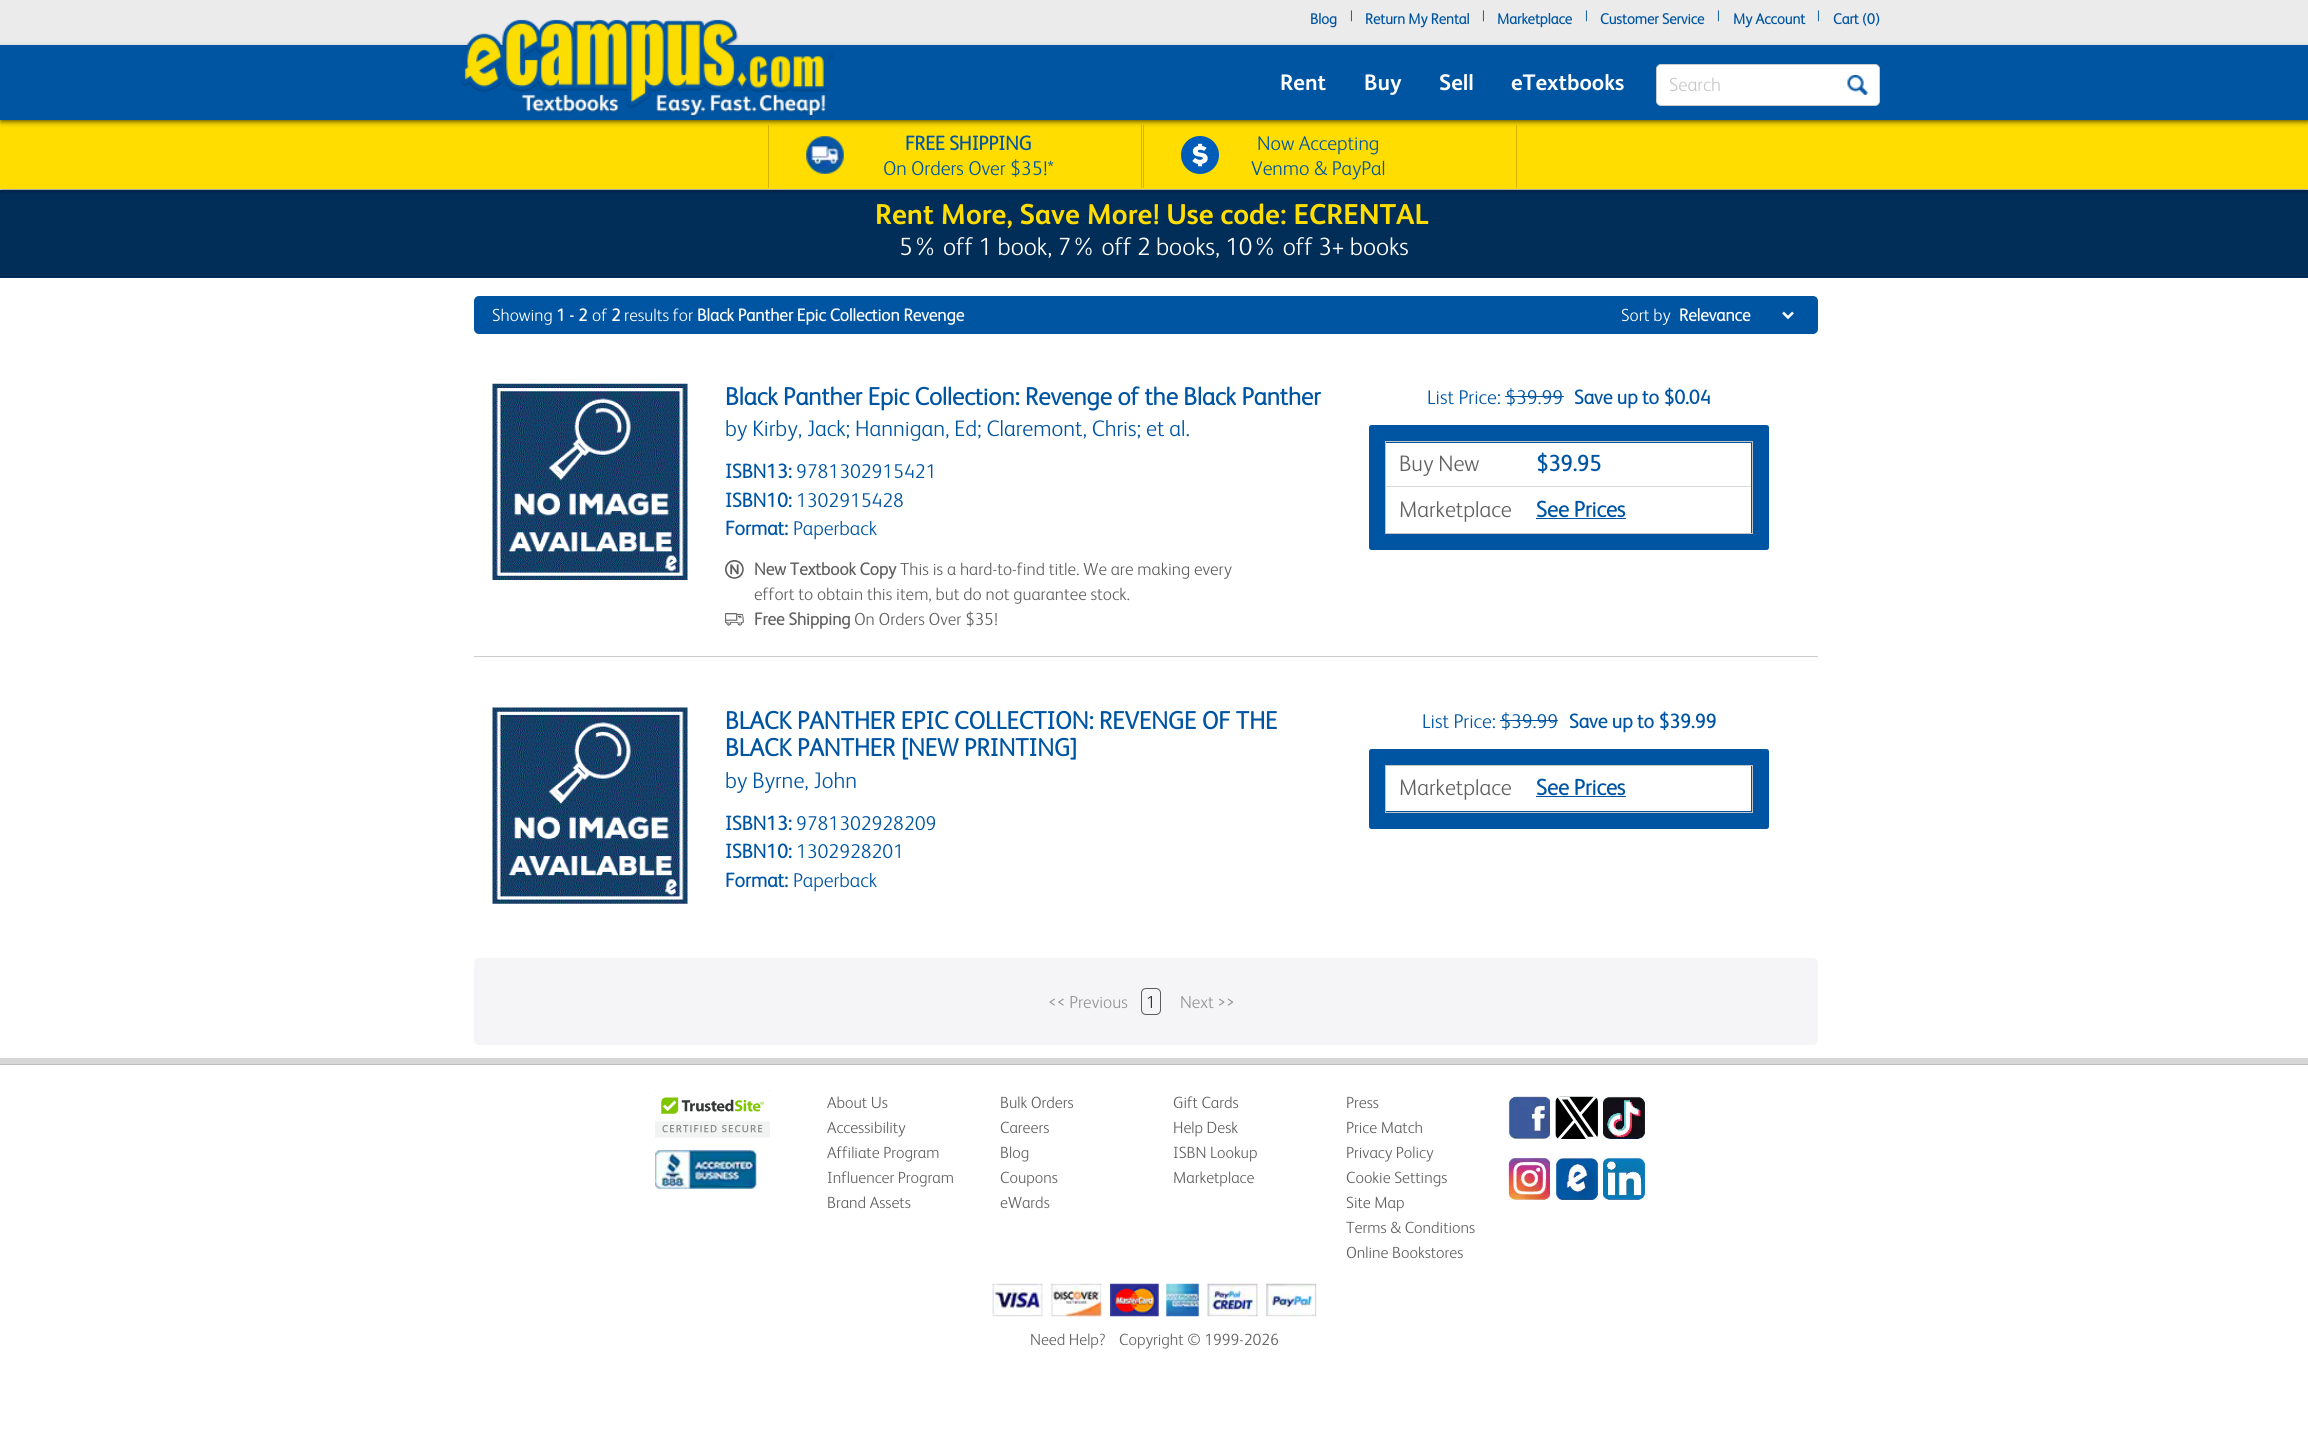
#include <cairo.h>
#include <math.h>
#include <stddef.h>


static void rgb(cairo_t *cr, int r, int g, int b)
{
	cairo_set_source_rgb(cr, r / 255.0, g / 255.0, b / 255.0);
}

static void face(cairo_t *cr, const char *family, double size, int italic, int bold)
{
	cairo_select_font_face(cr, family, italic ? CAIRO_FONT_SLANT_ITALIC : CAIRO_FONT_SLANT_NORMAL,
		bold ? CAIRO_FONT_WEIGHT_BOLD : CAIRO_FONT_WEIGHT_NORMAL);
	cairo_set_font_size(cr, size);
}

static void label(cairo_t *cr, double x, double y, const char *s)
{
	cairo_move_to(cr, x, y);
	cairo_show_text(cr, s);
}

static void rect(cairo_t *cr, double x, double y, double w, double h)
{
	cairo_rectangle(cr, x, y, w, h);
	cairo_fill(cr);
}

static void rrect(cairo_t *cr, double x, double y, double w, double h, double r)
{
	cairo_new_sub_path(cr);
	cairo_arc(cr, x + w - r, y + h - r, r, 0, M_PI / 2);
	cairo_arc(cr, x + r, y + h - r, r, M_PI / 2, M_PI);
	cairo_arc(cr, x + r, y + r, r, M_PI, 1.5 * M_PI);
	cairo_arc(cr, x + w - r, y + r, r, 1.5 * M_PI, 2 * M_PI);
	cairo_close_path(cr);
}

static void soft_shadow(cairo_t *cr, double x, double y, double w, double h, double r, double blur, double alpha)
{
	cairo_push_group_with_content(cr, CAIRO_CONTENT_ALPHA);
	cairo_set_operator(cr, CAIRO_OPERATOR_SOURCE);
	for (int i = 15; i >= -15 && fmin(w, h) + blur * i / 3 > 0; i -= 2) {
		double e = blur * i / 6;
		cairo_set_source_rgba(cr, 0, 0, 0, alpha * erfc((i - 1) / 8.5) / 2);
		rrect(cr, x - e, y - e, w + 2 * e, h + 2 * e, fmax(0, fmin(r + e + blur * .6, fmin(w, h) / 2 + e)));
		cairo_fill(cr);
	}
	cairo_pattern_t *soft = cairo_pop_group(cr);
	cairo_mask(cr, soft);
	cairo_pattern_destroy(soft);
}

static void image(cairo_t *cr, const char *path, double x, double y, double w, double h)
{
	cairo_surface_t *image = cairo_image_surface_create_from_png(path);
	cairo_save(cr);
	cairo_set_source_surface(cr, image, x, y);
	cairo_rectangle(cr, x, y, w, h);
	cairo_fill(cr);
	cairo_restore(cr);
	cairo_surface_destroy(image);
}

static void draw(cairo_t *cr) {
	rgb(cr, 255, 255, 255);
	cairo_paint(cr);
	rgb(cr, 235, 235, 235);
	rect(cr, 0, 0, 2308, 45);
	face(cr, "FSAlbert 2", 15, 0, 1);
	rgb(cr, 0, 85, 163);
	label(cr, 1310, 24, "Blog");
	face(cr, "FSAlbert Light", 15, 0, 0);
	label(cr, 1350, 21, "|");
	face(cr, "FSAlbert 2", 15, 0, 1);
	label(cr, 1365, 24, "Return My Rental");
	face(cr, "FSAlbert Light", 15, 0, 0);
	label(cr, 1482, 21, "|");
	face(cr, "FSAlbert 2", 15, 0, 1);
	label(cr, 1497, 24, "Marketplace");
	face(cr, "FSAlbert Light", 15, 0, 0);
	label(cr, 1585, 21, "|");
	face(cr, "FSAlbert 2", 15, 0, 1);
	label(cr, 1600, 24, "Customer Service");
	face(cr, "FSAlbert Light", 15, 0, 0);
	label(cr, 1717, 21, "|");
	face(cr, "FSAlbert 2", 15, 0, 1);
	label(cr, 1733, 24, "My Account");
	face(cr, "FSAlbert Light", 15, 0, 0);
	label(cr, 1817, 21, "|");
	face(cr, "FSAlbert 2", 15, 0, 1);
	label(cr, 1833, 24, "Cart (0)");
	rgb(cr, 1, 46, 88);
	rect(cr, 0, 190, 2308, 88);
	rgb(cr, 0, 0, 0);
	soft_shadow(cr, 1, 123, 2307, 66, 0, 3, 0.75);
	rgb(cr, 255, 221, 0);
	rect(cr, 0, 120, 2308, 69);
	rgb(cr, 214, 181, 0);
	rect(cr, 1141, 125, 1, 63);
	rect(cr, 768, 125, 1, 63);
	rect(cr, 1516, 125, 1, 63);
	rect(cr, 1143, 125, 1, 63);
	rgb(cr, 0, 0, 0);
	soft_shadow(cr, 1, 49, 2307, 72, 0, 3, 0.75);
	rgb(cr, 0, 85, 163);
	rect(cr, 0, 45, 2308, 75);
	image(cr, "image0.png", 461, 19, 373, 99);
	face(cr, "FSAlbert", 22.5, 0, 1);
	rgb(cr, 255, 255, 255);
	label(cr, 1280, 90, "Rent");
	label(cr, 1364, 90, "Buy");
	label(cr, 1439, 90, "Sell");
	label(cr, 1511, 90, "eTextbooks");
	rrect(cr, 1656.5, 64.5, 223, 41, 4.5);
	cairo_fill_preserve(cr);
	rgb(cr, 204, 204, 204);
	cairo_set_line_width(cr, 1);
	cairo_stroke(cr);
	face(cr, "FSAlbert Light", 19, 0, 0);
	rgb(cr, 200, 200, 200);
	label(cr, 1669, 91, "Search");
	image(cr, "image1.png", 1847, 75, 21, 20);
	image(cr, "image2.png", 806, 136, 38, 38);
	face(cr, "FSAlbert 2", 20, 0, 1);
	rgb(cr, 0, 85, 163);
	label(cr, 905, 150, "FREE SHIPPING");
	face(cr, "FSAlbert Light", 20, 0, 0);
	label(cr, 883, 175, "On Orders Over $35!*");
	image(cr, "image3.png", 1181, 136, 38, 38);
	label(cr, 1257, 150, "Now Accepting");
	label(cr, 1251, 175, "Venmo & PayPal");
	face(cr, "FSAlbert", 28.75, 0, 1);
	rgb(cr, 255, 221, 0);
	label(cr, 875, 224, "Rent More, Save More! Use code: ECRENTAL");
	face(cr, "FSAlbert Light", 25, 0, 0);
	rgb(cr, 255, 255, 255);
	label(cr, 899, 255, "5% off 1 book, 7% off 2 books, 10% off 3+ books");
	rgb(cr, 0, 85, 163);
	rrect(cr, 474, 296, 1344, 38, 5);
	cairo_fill(cr);
	face(cr, "FSAlbert Light", 17.5, 0, 0);
	rgb(cr, 255, 255, 255);
	label(cr, 492, 321, "Showing");
	face(cr, "FSAlbert 2", 17.5, 0, 1);
	label(cr, 556, 321, "1 - 2");
	face(cr, "FSAlbert Light", 17.5, 0, 0);
	label(cr, 592, 321, "of");
	face(cr, "FSAlbert 2", 17.5, 0, 1);
	label(cr, 611, 321, "2");
	face(cr, "FSAlbert Light", 17.5, 0, 0);
	label(cr, 624, 321, "results for");
	face(cr, "FSAlbert 2", 17.5, 0, 1);
	label(cr, 697, 321, "Black Panther Epic Collection Revenge");
	face(cr, "FSAlbert Light", 17.5, 0, 0);
	label(cr, 1621, 321, "Sort by");
	cairo_new_path(cr);
	cairo_move_to(cr, 1783, 312.5);
	cairo_line_to(cr, 1788, 317.5);
	cairo_line_to(cr, 1793, 312.5);
	cairo_set_line_width(cr, 2.5);
	cairo_stroke(cr);
	face(cr, "FSAlbert 2", 17.5, 0, 1);
	label(cr, 1679, 321, "Relevance");
	rgb(cr, 204, 204, 204);
	rect(cr, 474, 656, 1344, 1);
	image(cr, "image4.png", 492, 383, 196, 197);
	face(cr, "FSAlbert 2", 25, 0, 1);
	rgb(cr, 0, 85, 163);
	label(cr, 725, 405, "Black Panther Epic Collection: Revenge of the Black Panther");
	face(cr, "FSAlbert Light", 22.5, 0, 0);
	label(cr, 725, 436, "by Kirby, Jack; Hannigan, Ed; Claremont, Chris; et al.");
	face(cr, "FSAlbert 2", 20, 0, 1);
	label(cr, 725, 478, "ISBN13:");
	face(cr, "FSAlbert Light", 20, 0, 0);
	label(cr, 796, 478, "9781302915421");
	face(cr, "FSAlbert 2", 20, 0, 1);
	label(cr, 725, 507, "ISBN10:");
	face(cr, "FSAlbert Light", 20, 0, 0);
	label(cr, 796, 507, "1302915428");
	face(cr, "FSAlbert 2", 20, 0, 1);
	label(cr, 725, 535, "Format:");
	face(cr, "FSAlbert Light", 20, 0, 0);
	label(cr, 793, 535, "Paperback");
	image(cr, "image5.png", 725, 560, 19, 19);
	face(cr, "FSAlbert 2", 17.5, 0, 1);
	rgb(cr, 97, 97, 97);
	label(cr, 754, 575, "New Textbook Copy");
	face(cr, "FSAlbert Light", 17.5, 0, 0);
	label(cr, 900, 575, "This is a hard-to-find title. We are making every");
	label(cr, 754, 600, "effort to obtain this item, but do not guarantee stock.");
	image(cr, "image6.png", 725, 613, 19, 13);
	face(cr, "FSAlbert 2", 17.5, 0, 1);
	label(cr, 754, 625, "Free Shipping");
	face(cr, "FSAlbert Light", 17.5, 0, 0);
	label(cr, 854, 625, "On Orders Over $35!");
	face(cr, "FSAlbert Light", 20, 0, 0);
	rgb(cr, 0, 85, 163);
	label(cr, 1427, 404, "List Price: $39.99");
	rect(cr, 1505, 396, 59, 1);
	face(cr, "FSAlbert 2", 20, 0, 1);
	label(cr, 1574, 404, "Save up to $0.04");
	rrect(cr, 1369, 425, 400, 125, 2.5);
	cairo_fill(cr);
	cairo_rectangle(cr, 1385.5, 441.5, 367, 92);
	rgb(cr, 195, 195, 195);
	cairo_set_line_width(cr, 1);
	cairo_stroke(cr);
	rgb(cr, 255, 255, 255);
	rect(cr, 1386, 443, 365, 90);
	rgb(cr, 219, 219, 219);
	rect(cr, 1386, 486, 365, 1);
	face(cr, "FSAlbert Light", 22.5, 0, 0);
	rgb(cr, 97, 97, 97);
	label(cr, 1399, 471, "Buy New");
	face(cr, "FSAlbert 2", 22.5, 0, 1);
	rgb(cr, 0, 85, 163);
	label(cr, 1536, 471, "$39.95");
	face(cr, "FSAlbert Light", 22.5, 0, 0);
	rgb(cr, 97, 97, 97);
	label(cr, 1399, 517, "Marketplace");
	face(cr, "FSAlbert 2", 22.5, 0, 1);
	rgb(cr, 0, 85, 163);
	label(cr, 1536, 517, "See Prices");
	rect(cr, 1536, 518, 90, 1);
	image(cr, "image7.png", 492, 707, 196, 197);
	face(cr, "FSAlbert 2", 25, 0, 1);
	label(cr, 725, 729, "BLACK PANTHER EPIC COLLECTION: REVENGE OF THE");
	label(cr, 725, 756, "BLACK PANTHER [NEW PRINTING]");
	face(cr, "FSAlbert Light", 22.5, 0, 0);
	label(cr, 725, 788, "by Byrne, John");
	face(cr, "FSAlbert 2", 20, 0, 1);
	label(cr, 725, 830, "ISBN13:");
	face(cr, "FSAlbert Light", 20, 0, 0);
	label(cr, 796, 830, "9781302928209");
	face(cr, "FSAlbert 2", 20, 0, 1);
	label(cr, 725, 858, "ISBN10:");
	face(cr, "FSAlbert Light", 20, 0, 0);
	label(cr, 796, 858, "1302928201");
	face(cr, "FSAlbert 2", 20, 0, 1);
	label(cr, 725, 887, "Format:");
	face(cr, "FSAlbert Light", 20, 0, 0);
	label(cr, 793, 887, "Paperback");
	label(cr, 1422, 728, "List Price: $39.99");
	rect(cr, 1500, 720, 58, 1);
	face(cr, "FSAlbert 2", 20, 0, 1);
	label(cr, 1569, 728, "Save up to $39.99");
	rrect(cr, 1369, 749, 400, 80, 2.5);
	cairo_fill(cr);
	cairo_rectangle(cr, 1385.5, 765.5, 367, 47);
	rgb(cr, 195, 195, 195);
	cairo_stroke(cr);
	rgb(cr, 255, 255, 255);
	rect(cr, 1386, 766, 365, 45);
	face(cr, "FSAlbert Light", 22.5, 0, 0);
	rgb(cr, 97, 97, 97);
	label(cr, 1399, 795, "Marketplace");
	face(cr, "FSAlbert 2", 22.5, 0, 1);
	rgb(cr, 0, 85, 163);
	label(cr, 1536, 795, "See Prices");
	rect(cr, 1536, 796, 90, 1);
	rgb(cr, 245, 245, 247);
	rrect(cr, 474, 958, 1344, 87, 5);
	cairo_fill(cr);
	face(cr, "FSAlbert Light", 17.5, 0, 0);
	rgb(cr, 148, 148, 148);
	label(cr, 1048, 1008, "<< Previous");
	rrect(cr, 1141.5, 988.5, 19, 26, 4.5);
	rgb(cr, 93, 93, 93);
	cairo_stroke(cr);
	rgb(cr, 51, 51, 51);
	label(cr, 1146, 1008, "1");
	rgb(cr, 148, 148, 148);
	label(cr, 1180, 1008, "Next >>");
	rgb(cr, 215, 215, 215);
	rect(cr, 0, 1058, 2308, 6);
	rgb(cr, 191, 191, 191);
	rect(cr, 0, 1064, 2308, 1);
	image(cr, "image8.png", 655, 1090, 115, 48);
	image(cr, "image9.png", 655, 1150, 102, 39);
	face(cr, "FSAlbert Light", 16.25, 0, 0);
	rgb(cr, 97, 97, 97);
	label(cr, 827, 1108, "About Us");
	label(cr, 827, 1133, "Accessibility");
	label(cr, 827, 1158, "Affiliate Program");
	label(cr, 827, 1183, "Influencer Program");
	label(cr, 827, 1208, "Brand Assets");
	label(cr, 1000, 1108, "Bulk Orders");
	label(cr, 1000, 1133, "Careers");
	label(cr, 1000, 1158, "Blog");
	label(cr, 1000, 1183, "Coupons");
	label(cr, 1000, 1208, "eWards");
	label(cr, 1173, 1108, "Gift Cards");
	label(cr, 1173, 1133, "Help Desk");
	label(cr, 1173, 1158, "ISBN Lookup");
	label(cr, 1173, 1183, "Marketplace");
	label(cr, 1346, 1108, "Press");
	label(cr, 1346, 1133, "Price Match");
	label(cr, 1346, 1158, "Privacy Policy");
	label(cr, 1346, 1183, "Cookie Settings");
	label(cr, 1346, 1208, "Site Map");
	label(cr, 1346, 1233, "Terms & Conditions");
	label(cr, 1346, 1258, "Online Bookstores");
	image(cr, "image10.png", 1508, 1096, 42, 43);
	image(cr, "image11.png", 1555, 1096, 43, 43);
	image(cr, "image12.png", 1603, 1096, 42, 43);
	image(cr, "image13.png", 1508, 1158, 42, 42);
	image(cr, "image14.png", 1555, 1158, 43, 42);
	image(cr, "image15.png", 1603, 1158, 42, 42);
	image(cr, "image16.png", 992, 1283, 51, 34);
	image(cr, "image17.png", 1051, 1283, 51, 34);
	image(cr, "image18.png", 1110, 1283, 49, 34);
	image(cr, "image19.png", 1166, 1283, 33, 34);
	image(cr, "image20.png", 1207, 1283, 51, 34);
	image(cr, "image21.png", 1266, 1283, 51, 34);
	label(cr, 1030, 1345, "Need Help?");
	label(cr, 1119, 1345, "Copyright © 1999-2026");
}

int main(void) {
	cairo_surface_t *surface = cairo_image_surface_create(CAIRO_FORMAT_RGB24, 2308, 1447);
	cairo_t *cr = cairo_create(surface);
	cairo_font_options_t *options = cairo_font_options_create();
	cairo_font_options_set_hint_metrics(options, CAIRO_HINT_METRICS_OFF);
	cairo_font_options_set_hint_style(options, CAIRO_HINT_STYLE_NONE);
	cairo_set_font_options(cr, options);
	cairo_set_miter_limit(cr, 4);
	draw(cr);
	cairo_surface_write_to_png(surface, "render.png");
	cairo_font_options_destroy(options);
	cairo_destroy(cr);
	cairo_surface_destroy(surface);
	return 0;
}
